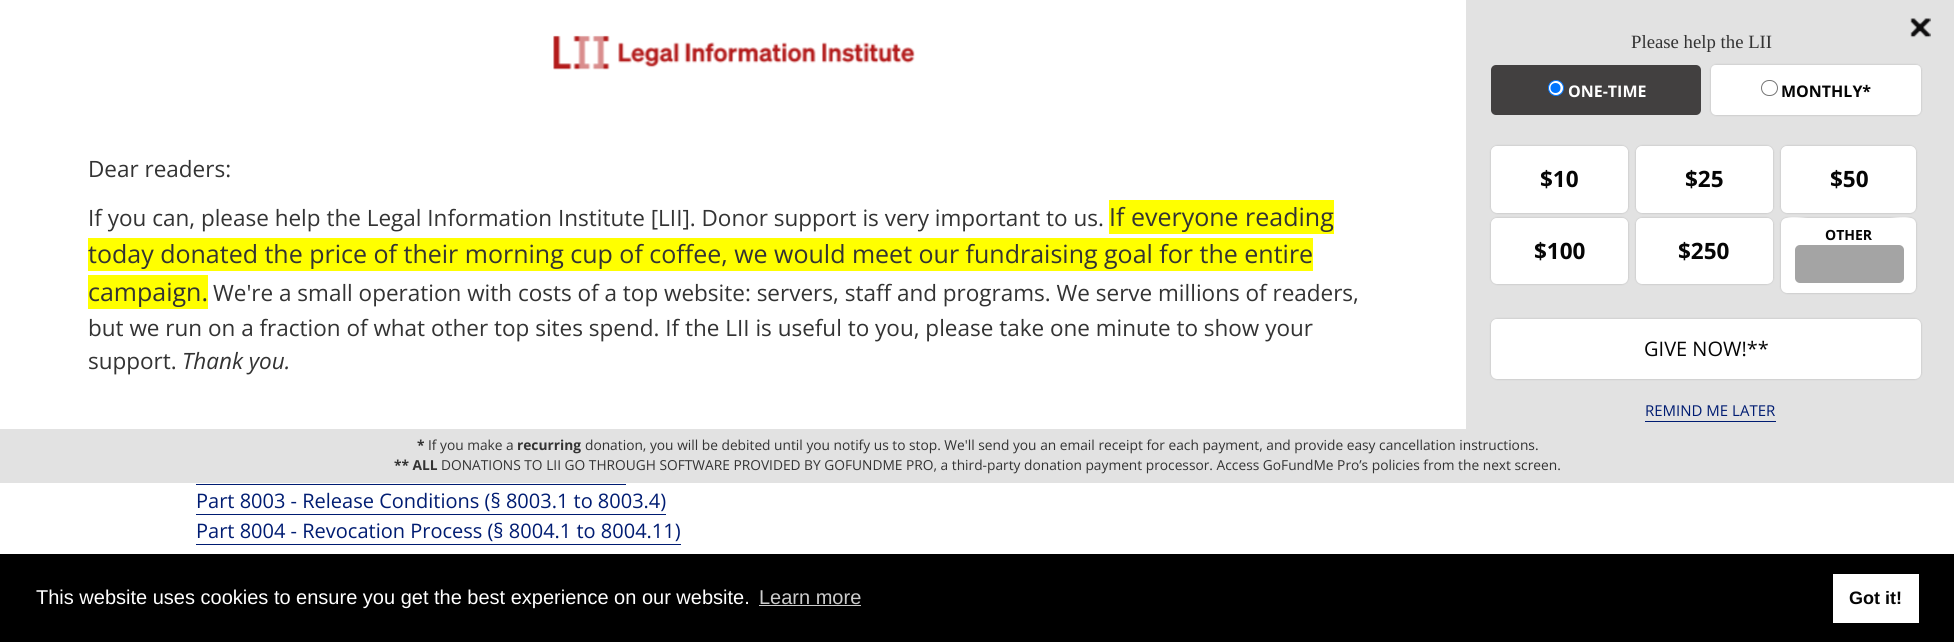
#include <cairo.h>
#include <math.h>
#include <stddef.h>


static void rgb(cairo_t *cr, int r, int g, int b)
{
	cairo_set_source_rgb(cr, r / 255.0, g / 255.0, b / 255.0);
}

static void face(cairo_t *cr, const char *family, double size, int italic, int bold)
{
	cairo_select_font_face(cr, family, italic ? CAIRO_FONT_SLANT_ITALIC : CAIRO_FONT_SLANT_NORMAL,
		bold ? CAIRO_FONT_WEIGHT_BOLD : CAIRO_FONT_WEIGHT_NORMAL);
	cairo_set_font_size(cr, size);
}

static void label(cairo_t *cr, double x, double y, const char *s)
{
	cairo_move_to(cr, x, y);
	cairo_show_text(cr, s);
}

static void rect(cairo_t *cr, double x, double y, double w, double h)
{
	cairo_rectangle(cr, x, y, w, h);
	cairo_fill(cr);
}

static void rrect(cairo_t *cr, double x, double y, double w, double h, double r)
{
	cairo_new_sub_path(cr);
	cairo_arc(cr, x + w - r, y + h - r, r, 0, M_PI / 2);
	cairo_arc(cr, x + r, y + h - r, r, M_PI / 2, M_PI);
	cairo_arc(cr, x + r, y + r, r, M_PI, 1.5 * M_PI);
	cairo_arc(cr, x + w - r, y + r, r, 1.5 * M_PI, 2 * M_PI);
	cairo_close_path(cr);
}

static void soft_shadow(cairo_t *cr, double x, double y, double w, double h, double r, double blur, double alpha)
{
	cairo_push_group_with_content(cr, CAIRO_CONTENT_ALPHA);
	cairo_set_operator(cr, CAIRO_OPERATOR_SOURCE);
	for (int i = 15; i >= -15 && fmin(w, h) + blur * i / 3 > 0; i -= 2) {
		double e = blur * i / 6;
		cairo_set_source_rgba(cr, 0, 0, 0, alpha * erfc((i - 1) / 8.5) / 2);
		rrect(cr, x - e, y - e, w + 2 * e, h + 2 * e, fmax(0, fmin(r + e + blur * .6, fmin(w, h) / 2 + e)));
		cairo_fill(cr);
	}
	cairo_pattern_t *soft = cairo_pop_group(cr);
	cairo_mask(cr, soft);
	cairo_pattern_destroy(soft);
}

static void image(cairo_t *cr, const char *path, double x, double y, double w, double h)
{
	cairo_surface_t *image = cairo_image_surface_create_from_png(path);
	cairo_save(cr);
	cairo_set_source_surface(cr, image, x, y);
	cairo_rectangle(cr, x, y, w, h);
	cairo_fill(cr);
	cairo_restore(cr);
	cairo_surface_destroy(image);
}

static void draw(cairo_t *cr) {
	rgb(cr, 255, 255, 255);
	cairo_paint(cr);
	image(cr, "image0.png", 553, 35, 362, 35);
	face(cr, "Open Sans", 22.5, 0, 0);
	rgb(cr, 51, 51, 51);
	label(cr, 88, 177, "Dear readers:");
	label(cr, 88, 226, "If you can, please help the Legal Information Institute [LII]. Donor support is very important to us.");
	rgb(cr, 255, 255, 0);
	rect(cr, 1109, 200, 225, 34);
	face(cr, "Open Sans", 25, 0, 0);
	rgb(cr, 51, 51, 51);
	label(cr, 1109, 226, "If everyone reading");
	rgb(cr, 255, 255, 0);
	rect(cr, 88, 238, 1225, 33);
	rgb(cr, 51, 51, 51);
	label(cr, 88, 263, "today donated the price of their morning cup of coffee, we would meet our fundraising goal for the entire");
	rgb(cr, 255, 255, 0);
	rect(cr, 88, 275, 120, 34);
	rgb(cr, 51, 51, 51);
	label(cr, 88, 301, "campaign.");
	face(cr, "Open Sans", 22.5, 0, 0);
	label(cr, 213, 301, "We're a small operation with costs of a top website: servers, staff and programs. We serve millions of readers,");
	label(cr, 88, 336, "but we run on a fraction of what other top sites spend. If the LII is useful to you, please take one minute to show your");
	label(cr, 88, 369, "support.");
	face(cr, "Open Sans", 22.5, 1, 0);
	label(cr, 182, 369, "Thank you.");
	rgb(cr, 226, 226, 226);
	rect(cr, 1466, 0, 488, 429);
	image(cr, "image1.png", 1910, 18, 21, 20);
	face(cr, "Liberation Serif", 18.75, 0, 0);
	rgb(cr, 51, 51, 51);
	label(cr, 1631, 48, "Please help the LII");
	rgb(cr, 66, 64, 64);
	rrect(cr, 1491, 65, 210, 50, 5);
	cairo_fill(cr);
	rgb(cr, 255, 255, 255);
	cairo_arc(cr, 1556, 88, 7.5, 0, 2 * M_PI);
	cairo_fill_preserve(cr);
	rgb(cr, 0, 117, 255);
	cairo_set_line_width(cr, 1);
	cairo_stroke(cr);
	cairo_arc(cr, 1555.5, 88, 5, 0, 2 * M_PI);
	cairo_fill(cr);
	face(cr, "Open Sans", 16, 0, 1);
	rgb(cr, 255, 255, 255);
	label(cr, 1568, 97, "ONE-TIME");
	rgb(cr, 0, 0, 0);
	soft_shadow(cr, 1711, 65, 210, 50, 5, 1, 0.2);
	rgb(cr, 255, 255, 255);
	rrect(cr, 1711, 65, 210, 50, 5);
	cairo_fill(cr);
	cairo_set_source_rgba(cr, 1, 1, 1, 0.75);
	cairo_new_path(cr);
	cairo_move_to(cr, 1716, 66);
	cairo_line_to(cr, 1916, 66);
	cairo_curve_to(cr, 1919, 66, 1921, 68, 1921, 71);
	cairo_line_to(cr, 1921, 70);
	cairo_curve_to(cr, 1921, 67, 1919, 65, 1916, 65);
	cairo_line_to(cr, 1716, 65);
	cairo_curve_to(cr, 1713, 65, 1711, 67, 1711, 70);
	cairo_line_to(cr, 1711, 71);
	cairo_curve_to(cr, 1711, 68, 1713, 66, 1716, 66);
	cairo_close_path(cr);
	cairo_fill(cr);
	rrect(cr, 1761.5, 80.5, 16, 15, 7.5);
	rgb(cr, 118, 118, 118);
	cairo_stroke(cr);
	rgb(cr, 5, 5, 5);
	label(cr, 1781, 97, "MONTHLY*");
	rgb(cr, 0, 0, 0);
	soft_shadow(cr, 1491, 146, 137, 67, 6, 1, 0.2);
	rgb(cr, 255, 255, 255);
	rrect(cr, 1491, 146, 137, 67, 6);
	cairo_fill(cr);
	cairo_set_source_rgba(cr, 1, 1, 1, 0.75);
	cairo_new_path(cr);
	cairo_move_to(cr, 1498, 148);
	cairo_line_to(cr, 1621, 148);
	cairo_curve_to(cr, 1624, 148, 1628, 151, 1628, 154);
	cairo_line_to(cr, 1628, 152);
	cairo_curve_to(cr, 1628, 149, 1625, 146, 1622, 146);
	cairo_line_to(cr, 1497, 146);
	cairo_curve_to(cr, 1494, 146, 1491, 149, 1491, 152);
	cairo_line_to(cr, 1491, 154);
	cairo_curve_to(cr, 1491, 151, 1494, 148, 1498, 148);
	cairo_close_path(cr);
	cairo_fill(cr);
	face(cr, "Open Sans", 22.5, 0, 1);
	rgb(cr, 5, 5, 5);
	label(cr, 1540, 187, "$10");
	rgb(cr, 0, 0, 0);
	soft_shadow(cr, 1636, 146, 137, 67, 6, 1, 0.2);
	rgb(cr, 255, 255, 255);
	rrect(cr, 1636, 146, 137, 67, 6);
	cairo_fill(cr);
	cairo_set_source_rgba(cr, 1, 1, 1, 0.75);
	cairo_new_path(cr);
	cairo_move_to(cr, 1643, 148);
	cairo_line_to(cr, 1766, 148);
	cairo_curve_to(cr, 1769, 148, 1772, 151, 1772, 154);
	cairo_line_to(cr, 1772, 207);
	cairo_curve_to(cr, 1772, 209, 1771, 211, 1770, 212);
	cairo_curve_to(cr, 1772, 211, 1773, 209, 1773, 207);
	cairo_line_to(cr, 1773, 152);
	cairo_curve_to(cr, 1773, 149, 1770, 146, 1767, 146);
	cairo_line_to(cr, 1642, 146);
	cairo_curve_to(cr, 1639, 146, 1636, 149, 1636, 152);
	cairo_line_to(cr, 1636, 154);
	cairo_curve_to(cr, 1636, 151, 1639, 148, 1643, 148);
	cairo_close_path(cr);
	cairo_fill(cr);
	rgb(cr, 5, 5, 5);
	label(cr, 1685, 187, "$25");
	rgb(cr, 0, 0, 0);
	soft_shadow(cr, 1781, 146, 135, 67, 6, 1, 0.2);
	rgb(cr, 255, 255, 255);
	rrect(cr, 1781, 146, 135, 67, 6);
	cairo_fill(cr);
	cairo_set_source_rgba(cr, 1, 1, 1, 0.75);
	cairo_new_path(cr);
	cairo_move_to(cr, 1788, 148);
	cairo_line_to(cr, 1910, 148);
	cairo_curve_to(cr, 1913, 148, 1916, 151, 1916, 154);
	cairo_line_to(cr, 1916, 152);
	cairo_curve_to(cr, 1916, 149, 1913, 146, 1910, 146);
	cairo_line_to(cr, 1787, 146);
	cairo_curve_to(cr, 1784, 146, 1781, 149, 1781, 152);
	cairo_line_to(cr, 1781, 154);
	cairo_curve_to(cr, 1781, 151, 1784, 148, 1788, 148);
	cairo_close_path(cr);
	cairo_fill(cr);
	rgb(cr, 5, 5, 5);
	label(cr, 1830, 187, "$50");
	rgb(cr, 0, 0, 0);
	soft_shadow(cr, 1781, 218, 135, 75, 6, 1, 0.2);
	rgb(cr, 255, 255, 255);
	rrect(cr, 1781, 218, 135, 75, 6);
	cairo_fill(cr);
	cairo_set_source_rgba(cr, 1, 1, 1, 0.75);
	cairo_new_path(cr);
	cairo_move_to(cr, 1787, 219);
	cairo_line_to(cr, 1910, 219);
	cairo_curve_to(cr, 1914, 219, 1916, 221, 1916, 225);
	cairo_curve_to(cr, 1916, 213, 1895, 218, 1890, 218);
	cairo_line_to(cr, 1808, 218);
	cairo_curve_to(cr, 1802, 218, 1781, 213, 1781, 225);
	cairo_curve_to(cr, 1781, 221, 1784, 219, 1787, 219);
	cairo_close_path(cr);
	cairo_fill(cr);
	face(cr, "Open Sans", 14, 0, 1);
	rgb(cr, 5, 5, 5);
	label(cr, 1825, 240, "OTHER");
	rgb(cr, 164, 164, 164);
	rrect(cr, 1795, 245, 109, 38, 5);
	cairo_fill(cr);
	rgb(cr, 0, 0, 0);
	soft_shadow(cr, 1491, 218, 137, 66, 6, 1, 0.2);
	rgb(cr, 255, 255, 255);
	rrect(cr, 1491, 218, 137, 66, 6);
	cairo_fill(cr);
	cairo_set_source_rgba(cr, 1, 1, 1, 0.75);
	cairo_new_path(cr);
	cairo_move_to(cr, 1498, 219);
	cairo_line_to(cr, 1621, 219);
	cairo_curve_to(cr, 1624, 219, 1628, 222, 1628, 226);
	cairo_line_to(cr, 1628, 224);
	cairo_curve_to(cr, 1628, 221, 1625, 218, 1622, 218);
	cairo_line_to(cr, 1497, 218);
	cairo_curve_to(cr, 1494, 218, 1491, 221, 1491, 224);
	cairo_line_to(cr, 1491, 226);
	cairo_curve_to(cr, 1491, 222, 1494, 219, 1498, 219);
	cairo_close_path(cr);
	cairo_fill(cr);
	face(cr, "Open Sans", 22.5, 0, 1);
	rgb(cr, 5, 5, 5);
	label(cr, 1534, 259, "$100");
	rgb(cr, 0, 0, 0);
	soft_shadow(cr, 1636, 218, 137, 66, 6, 1, 0.2);
	rgb(cr, 255, 255, 255);
	rrect(cr, 1636, 218, 137, 66, 6);
	cairo_fill(cr);
	cairo_set_source_rgba(cr, 1, 1, 1, 0.75);
	cairo_new_path(cr);
	cairo_move_to(cr, 1643, 219);
	cairo_line_to(cr, 1766, 219);
	cairo_curve_to(cr, 1769, 219, 1772, 222, 1772, 226);
	cairo_line_to(cr, 1772, 278);
	cairo_curve_to(cr, 1772, 280, 1771, 282, 1770, 283);
	cairo_curve_to(cr, 1772, 282, 1773, 280, 1773, 278);
	cairo_line_to(cr, 1773, 224);
	cairo_curve_to(cr, 1773, 221, 1770, 218, 1767, 218);
	cairo_line_to(cr, 1642, 218);
	cairo_curve_to(cr, 1639, 218, 1636, 221, 1636, 224);
	cairo_line_to(cr, 1636, 226);
	cairo_curve_to(cr, 1636, 222, 1639, 219, 1643, 219);
	cairo_close_path(cr);
	cairo_fill(cr);
	rgb(cr, 5, 5, 5);
	label(cr, 1678, 259, "$250");
	rgb(cr, 0, 0, 0);
	soft_shadow(cr, 1491, 319, 430, 60, 6, 1, 0.2);
	rgb(cr, 255, 255, 255);
	rrect(cr, 1491, 319, 430, 60, 6);
	cairo_fill(cr);
	cairo_set_source_rgba(cr, 1, 1, 1, 0.75);
	cairo_new_path(cr);
	cairo_move_to(cr, 1497, 320);
	cairo_line_to(cr, 1915, 320);
	cairo_curve_to(cr, 1919, 320, 1921, 323, 1921, 326);
	cairo_line_to(cr, 1921, 325);
	cairo_curve_to(cr, 1921, 322, 1918, 319, 1915, 319);
	cairo_line_to(cr, 1497, 319);
	cairo_curve_to(cr, 1494, 319, 1491, 322, 1491, 325);
	cairo_line_to(cr, 1491, 326);
	cairo_curve_to(cr, 1491, 323, 1494, 320, 1497, 320);
	cairo_close_path(cr);
	cairo_fill(cr);
	face(cr, "Open Sans", 20, 0, 0);
	rgb(cr, 5, 5, 5);
	label(cr, 1644, 356, "GIVE NOW!**");
	face(cr, "Open Sans", 15, 0, 0);
	rgb(cr, 0, 28, 114);
	label(cr, 1645, 416, "REMIND ME LATER");
	rect(cr, 1645, 421, 131, 1);
	rgb(cr, 226, 226, 226);
	rect(cr, 0, 429, 1954, 54);
	face(cr, "Open Sans", 13.75, 0, 1);
	rgb(cr, 51, 51, 51);
	label(cr, 417, 450, "*");
	face(cr, "Open Sans", 13.75, 0, 0);
	label(cr, 428, 450, "If you make a");
	face(cr, "Open Sans", 13.75, 0, 1);
	label(cr, 517, 450, "recurring");
	face(cr, "Open Sans", 13.75, 0, 0);
	label(cr, 585, 450, "donation, you will be debited until you notify us to stop. We'll send you an email receipt for each payment, and provide easy cancellation instructions.");
	face(cr, "Open Sans", 13.75, 0, 1);
	label(cr, 394, 470, "** ALL");
	face(cr, "Open Sans", 13.75, 0, 0);
	label(cr, 441, 470, "DONATIONS TO LII GO THROUGH SOFTWARE PROVIDED BY GOFUNDME PRO, a third-party donation payment processor. Access GoFundMe Pro’s policies from the next screen.");
	rgb(cr, 0, 28, 114);
	rect(cr, 196, 484, 430, 1);
	face(cr, "Open Sans", 20, 0, 0);
	label(cr, 196, 508, "Part 8003 - Release Conditions (§ 8003.1 to 8003.4)");
	rect(cr, 196, 514, 470, 1);
	label(cr, 196, 538, "Part 8004 - Revocation Process (§ 8004.1 to 8004.11)");
	rect(cr, 196, 544, 485, 1);
	rgb(cr, 0, 0, 0);
	rect(cr, 0, 554, 1954, 88);
	face(cr, "Liberation Sans", 20, 0, 0);
	rgb(cr, 255, 255, 255);
	label(cr, 36, 604, "This website uses cookies to ensure you get the best experience on our website.");
	rgb(cr, 204, 204, 204);
	label(cr, 759, 604, "Learn more");
	rect(cr, 759, 605, 102, 1);
	rgb(cr, 255, 255, 255);
	rect(cr, 1833, 574, 86, 49);
	face(cr, "Liberation Sans", 18, 0, 1);
	rgb(cr, 5, 5, 5);
	label(cr, 1849, 604, "Got it!");
}

int main(void) {
	cairo_surface_t *surface = cairo_image_surface_create(CAIRO_FORMAT_RGB24, 1954, 642);
	cairo_t *cr = cairo_create(surface);
	cairo_font_options_t *options = cairo_font_options_create();
	cairo_font_options_set_hint_metrics(options, CAIRO_HINT_METRICS_OFF);
	cairo_font_options_set_hint_style(options, CAIRO_HINT_STYLE_NONE);
	cairo_set_font_options(cr, options);
	cairo_set_miter_limit(cr, 4);
	draw(cr);
	cairo_surface_write_to_png(surface, "render.png");
	cairo_font_options_destroy(options);
	cairo_destroy(cr);
	cairo_surface_destroy(surface);
	return 0;
}
